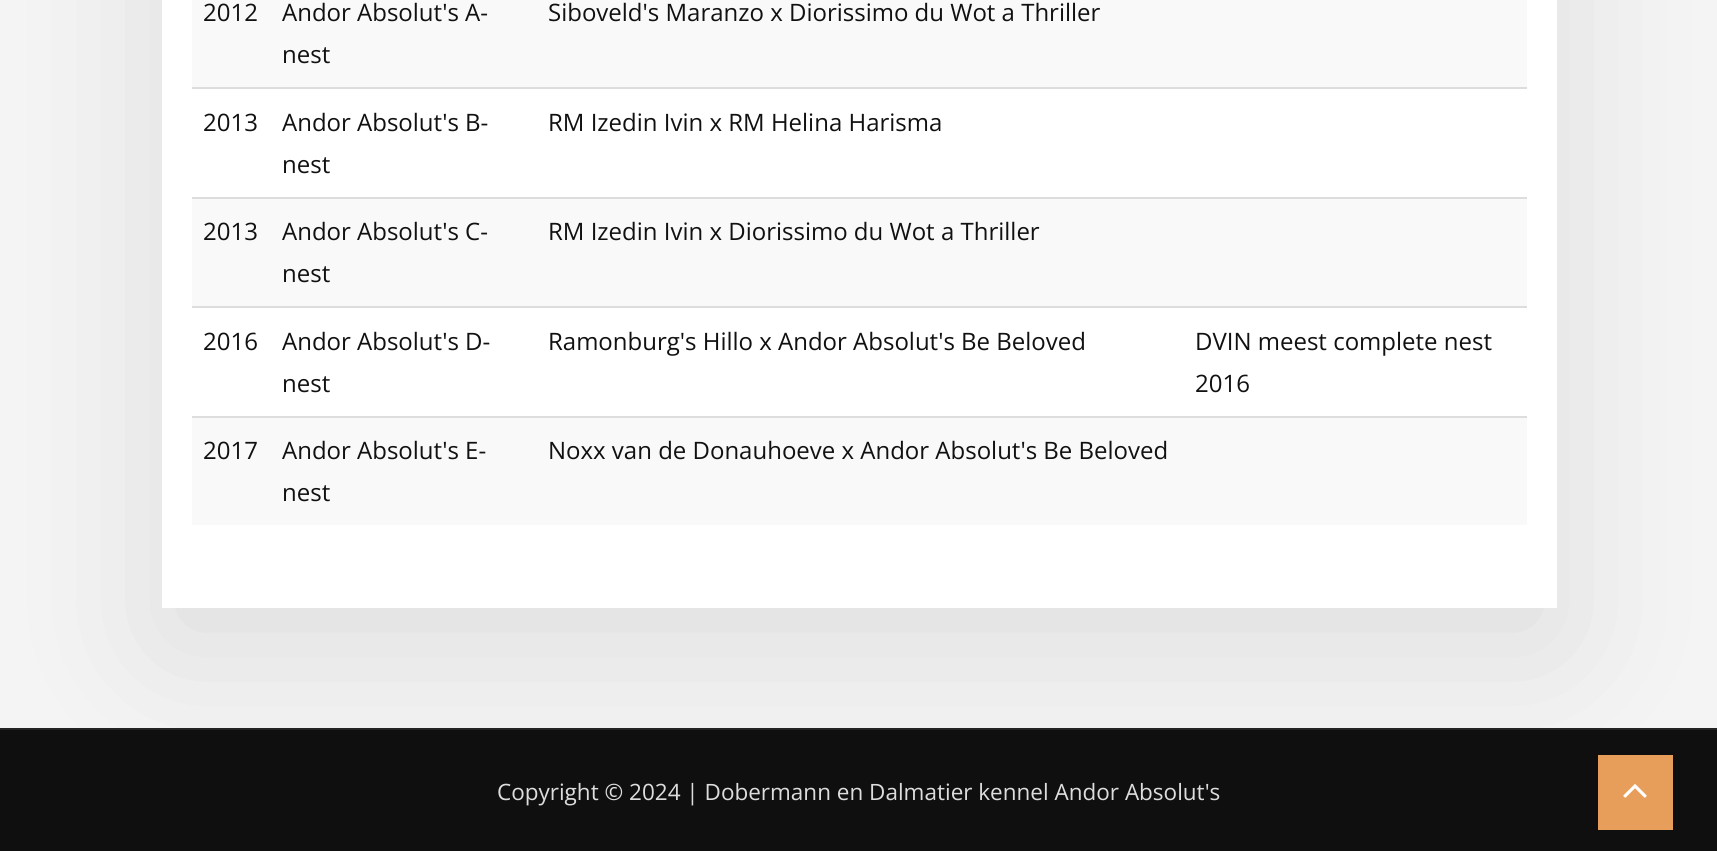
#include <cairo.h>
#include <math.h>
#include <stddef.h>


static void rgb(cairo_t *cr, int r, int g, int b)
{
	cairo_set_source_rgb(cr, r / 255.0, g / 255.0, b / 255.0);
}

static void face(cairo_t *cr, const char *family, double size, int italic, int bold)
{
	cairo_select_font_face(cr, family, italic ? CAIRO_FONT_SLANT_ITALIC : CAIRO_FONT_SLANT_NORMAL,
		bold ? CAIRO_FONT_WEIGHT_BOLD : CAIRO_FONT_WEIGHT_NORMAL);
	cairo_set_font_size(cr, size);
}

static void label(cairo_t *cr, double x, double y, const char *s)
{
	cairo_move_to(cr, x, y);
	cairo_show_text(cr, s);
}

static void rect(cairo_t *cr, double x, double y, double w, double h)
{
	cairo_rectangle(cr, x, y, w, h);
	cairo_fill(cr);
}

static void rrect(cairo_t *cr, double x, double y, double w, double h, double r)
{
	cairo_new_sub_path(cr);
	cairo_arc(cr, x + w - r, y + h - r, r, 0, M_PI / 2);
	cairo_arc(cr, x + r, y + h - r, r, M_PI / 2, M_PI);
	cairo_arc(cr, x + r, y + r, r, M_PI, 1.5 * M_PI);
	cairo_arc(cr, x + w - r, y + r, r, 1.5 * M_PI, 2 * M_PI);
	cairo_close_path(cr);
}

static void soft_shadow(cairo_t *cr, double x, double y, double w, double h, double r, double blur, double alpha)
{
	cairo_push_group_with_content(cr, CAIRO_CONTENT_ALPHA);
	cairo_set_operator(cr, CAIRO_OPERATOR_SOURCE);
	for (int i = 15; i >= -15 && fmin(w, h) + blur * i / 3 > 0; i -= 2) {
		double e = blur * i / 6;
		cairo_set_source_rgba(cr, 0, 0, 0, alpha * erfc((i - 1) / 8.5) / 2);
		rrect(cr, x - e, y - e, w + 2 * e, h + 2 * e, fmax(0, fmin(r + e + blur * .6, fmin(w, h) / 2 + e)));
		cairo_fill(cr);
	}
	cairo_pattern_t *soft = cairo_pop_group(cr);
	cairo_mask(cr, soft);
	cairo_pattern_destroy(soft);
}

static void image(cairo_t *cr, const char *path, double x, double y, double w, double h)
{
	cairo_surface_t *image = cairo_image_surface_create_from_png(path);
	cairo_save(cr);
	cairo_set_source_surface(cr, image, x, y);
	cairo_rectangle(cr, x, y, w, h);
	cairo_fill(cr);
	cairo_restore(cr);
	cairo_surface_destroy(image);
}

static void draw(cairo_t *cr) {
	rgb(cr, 244, 244, 244);
	cairo_paint(cr);
	rgb(cr, 0, 0, 0);
	soft_shadow(cr, 162, -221, 1395, 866, 0, 73.5, 0.1);
	rgb(cr, 255, 255, 255);
	rect(cr, 162, 0, 1395, 608);
	rgb(cr, 249, 249, 249);
	rect(cr, 192, 0, 1335, 87);
	face(cr, "Open Sans", 24, 0, 0);
	rgb(cr, 17, 17, 17);
	label(cr, 203, 21, "2012");
	label(cr, 282, 21, "Andor Absolut's A-");
	label(cr, 282, 63, "nest");
	label(cr, 548, 21, "Siboveld's Maranzo x Diorissimo du Wot a Thriller");
	rgb(cr, 221, 221, 221);
	rect(cr, 192, 87, 1335, 2);
	rgb(cr, 17, 17, 17);
	label(cr, 203, 131, "2013");
	label(cr, 282, 131, "Andor Absolut's B-");
	label(cr, 282, 173, "nest");
	label(cr, 548, 131, "RM Izedin Ivin x RM Helina Harisma");
	rgb(cr, 221, 221, 221);
	rect(cr, 192, 197, 1335, 2);
	rgb(cr, 249, 249, 249);
	rect(cr, 192, 199, 1335, 107);
	rgb(cr, 17, 17, 17);
	label(cr, 203, 240, "2013");
	label(cr, 282, 240, "Andor Absolut's C-");
	label(cr, 282, 282, "nest");
	label(cr, 548, 240, "RM Izedin Ivin x Diorissimo du Wot a Thriller");
	label(cr, 203, 350, "2016");
	label(cr, 282, 350, "Andor Absolut's D-");
	label(cr, 282, 392, "nest");
	label(cr, 548, 350, "Ramonburg's Hillo x Andor Absolut's Be Beloved");
	rgb(cr, 221, 221, 221);
	rect(cr, 192, 306, 1335, 2);
	rgb(cr, 17, 17, 17);
	label(cr, 1195, 350, "DVIN meest complete nest");
	label(cr, 1195, 392, "2016");
	rgb(cr, 221, 221, 221);
	rect(cr, 192, 416, 1335, 2);
	rgb(cr, 249, 249, 249);
	rect(cr, 192, 418, 1335, 107);
	rgb(cr, 17, 17, 17);
	label(cr, 203, 459, "2017");
	label(cr, 282, 459, "Andor Absolut's E-");
	label(cr, 282, 501, "nest");
	label(cr, 548, 459, "Noxx van de Donauhoeve x Andor Absolut's Be Beloved");
	rgb(cr, 15, 15, 15);
	rect(cr, 0, 730, 1717, 121);
	rgb(cr, 35, 35, 35);
	rect(cr, 0, 728, 1717, 2);
	face(cr, "Open Sans", 22.5, 0, 0);
	rgb(cr, 221, 221, 221);
	label(cr, 497, 800, "Copyright © 2024 | Dobermann en Dalmatier kennel Andor Absolut's");
	rgb(cr, 232, 158, 91);
	rect(cr, 1598, 755, 75, 75);
	image(cr, "image0.png", 1623, 784, 24, 14);
}

int main(void) {
	cairo_surface_t *surface = cairo_image_surface_create(CAIRO_FORMAT_RGB24, 1717, 851);
	cairo_t *cr = cairo_create(surface);
	cairo_font_options_t *options = cairo_font_options_create();
	cairo_font_options_set_hint_metrics(options, CAIRO_HINT_METRICS_OFF);
	cairo_font_options_set_hint_style(options, CAIRO_HINT_STYLE_NONE);
	cairo_set_font_options(cr, options);
	cairo_set_miter_limit(cr, 4);
	draw(cr);
	cairo_surface_write_to_png(surface, "render.png");
	cairo_font_options_destroy(options);
	cairo_destroy(cr);
	cairo_surface_destroy(surface);
	return 0;
}
